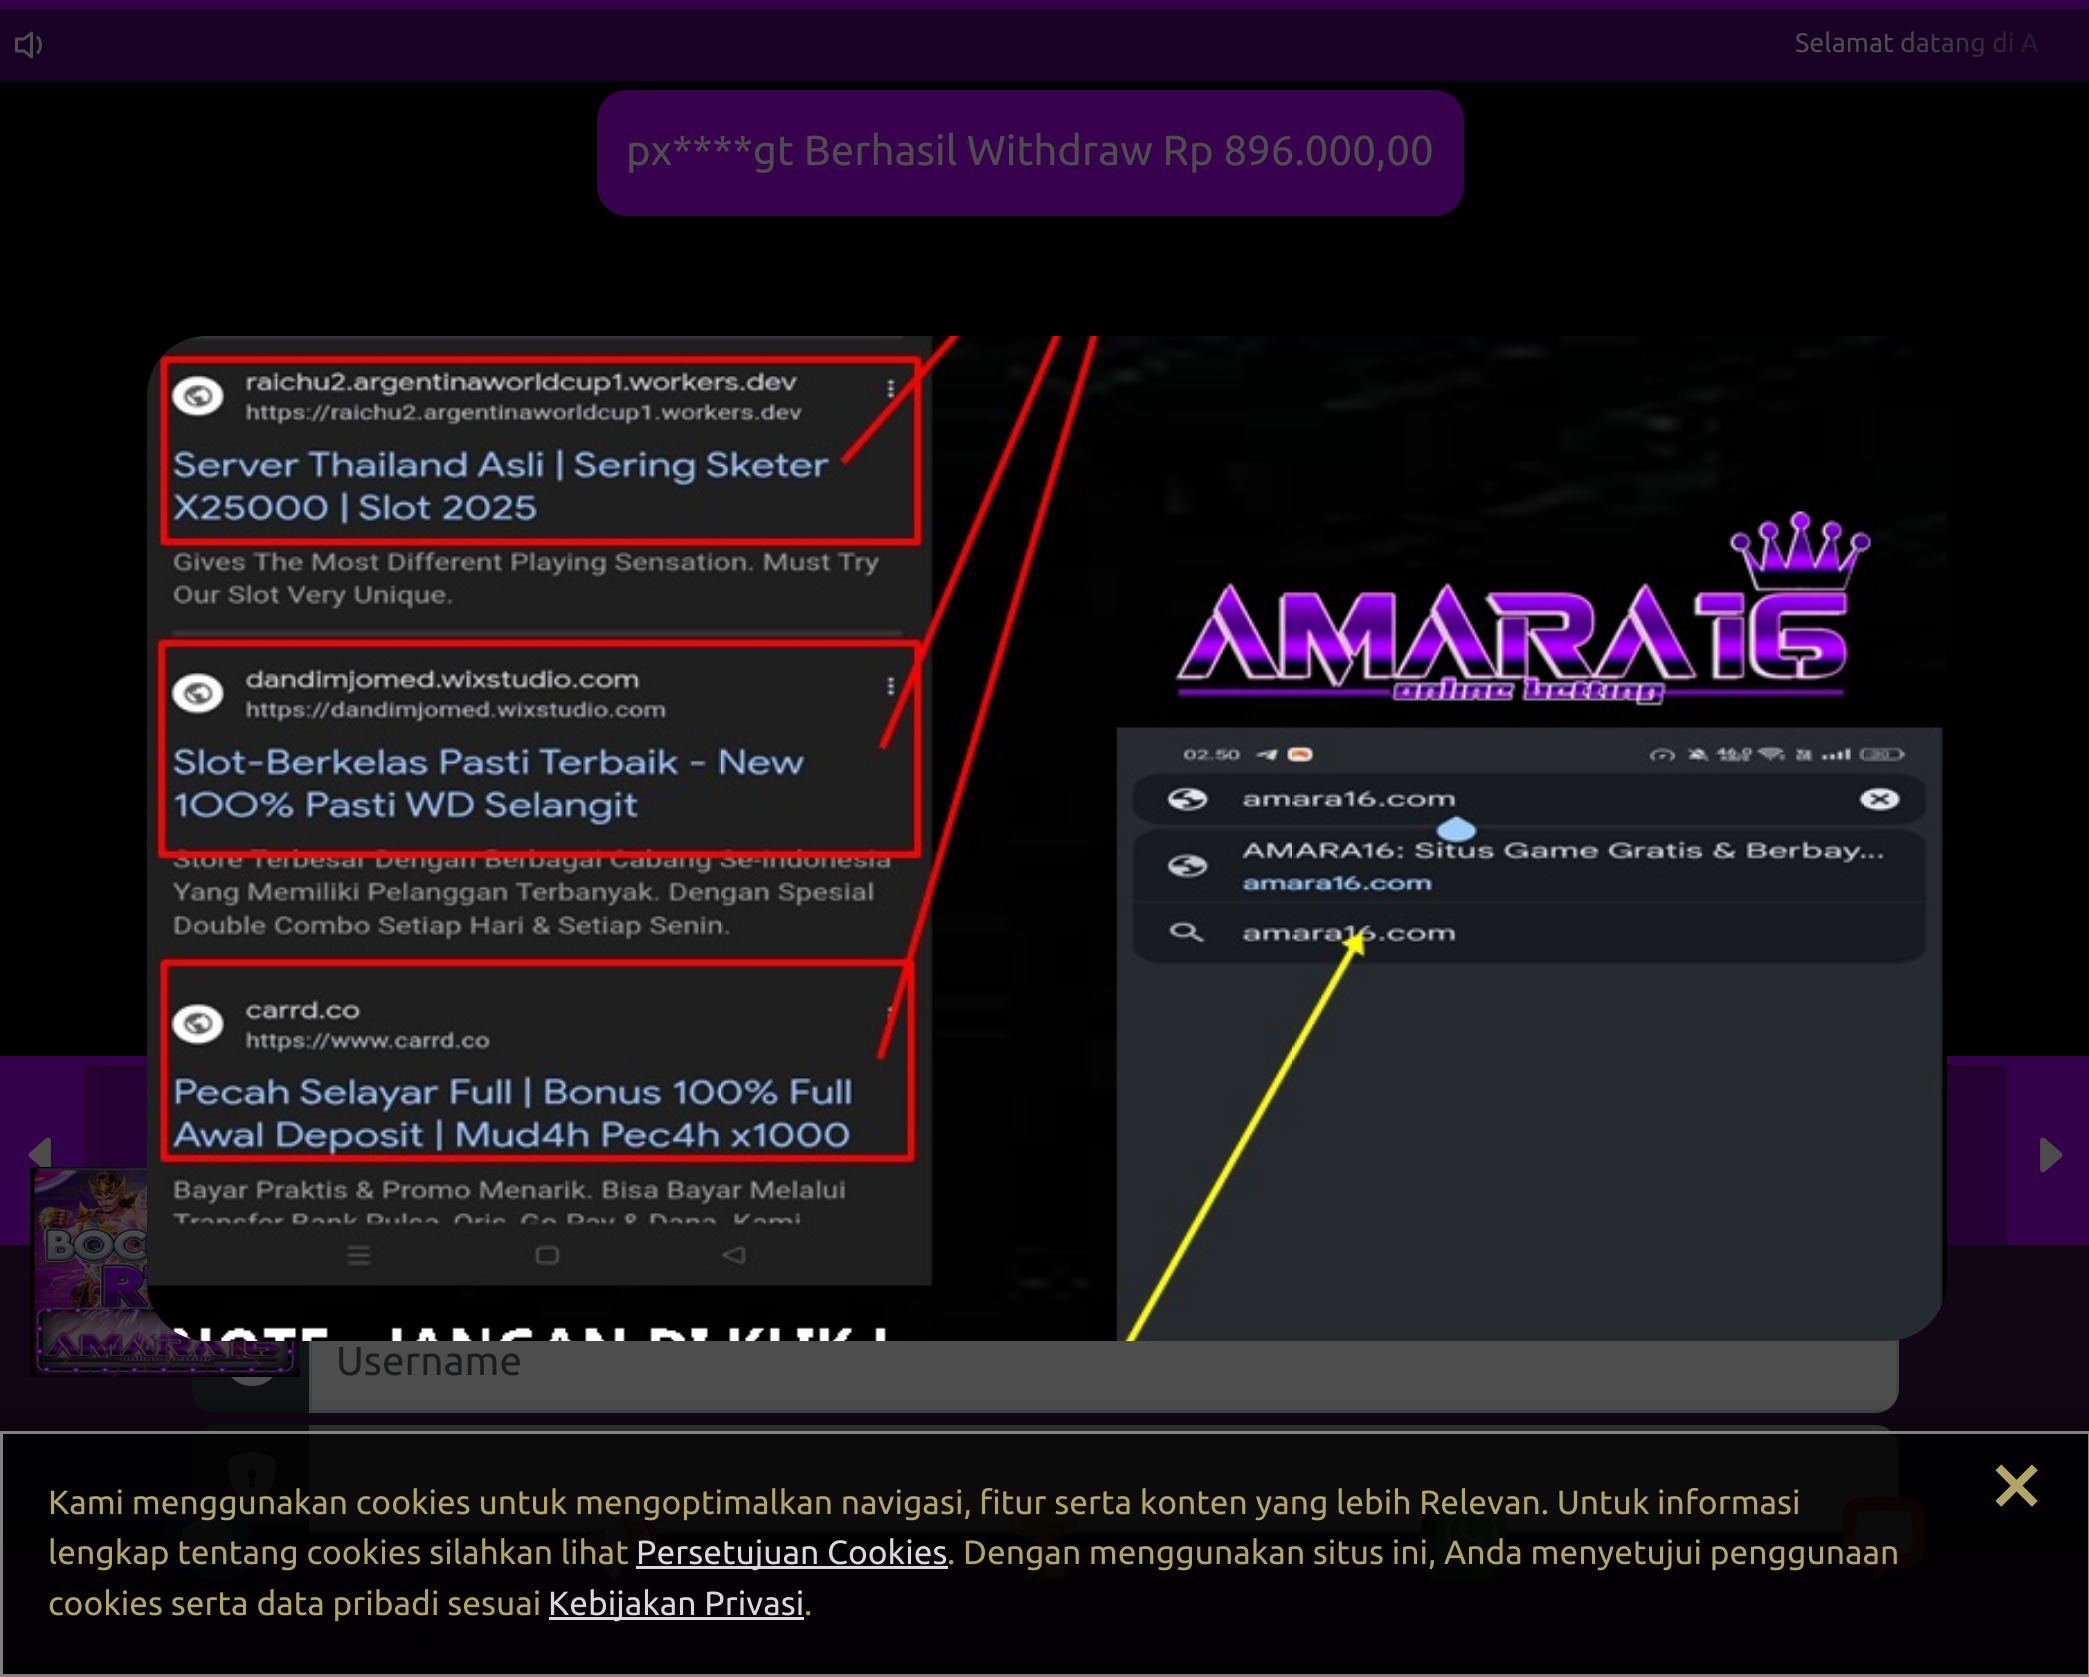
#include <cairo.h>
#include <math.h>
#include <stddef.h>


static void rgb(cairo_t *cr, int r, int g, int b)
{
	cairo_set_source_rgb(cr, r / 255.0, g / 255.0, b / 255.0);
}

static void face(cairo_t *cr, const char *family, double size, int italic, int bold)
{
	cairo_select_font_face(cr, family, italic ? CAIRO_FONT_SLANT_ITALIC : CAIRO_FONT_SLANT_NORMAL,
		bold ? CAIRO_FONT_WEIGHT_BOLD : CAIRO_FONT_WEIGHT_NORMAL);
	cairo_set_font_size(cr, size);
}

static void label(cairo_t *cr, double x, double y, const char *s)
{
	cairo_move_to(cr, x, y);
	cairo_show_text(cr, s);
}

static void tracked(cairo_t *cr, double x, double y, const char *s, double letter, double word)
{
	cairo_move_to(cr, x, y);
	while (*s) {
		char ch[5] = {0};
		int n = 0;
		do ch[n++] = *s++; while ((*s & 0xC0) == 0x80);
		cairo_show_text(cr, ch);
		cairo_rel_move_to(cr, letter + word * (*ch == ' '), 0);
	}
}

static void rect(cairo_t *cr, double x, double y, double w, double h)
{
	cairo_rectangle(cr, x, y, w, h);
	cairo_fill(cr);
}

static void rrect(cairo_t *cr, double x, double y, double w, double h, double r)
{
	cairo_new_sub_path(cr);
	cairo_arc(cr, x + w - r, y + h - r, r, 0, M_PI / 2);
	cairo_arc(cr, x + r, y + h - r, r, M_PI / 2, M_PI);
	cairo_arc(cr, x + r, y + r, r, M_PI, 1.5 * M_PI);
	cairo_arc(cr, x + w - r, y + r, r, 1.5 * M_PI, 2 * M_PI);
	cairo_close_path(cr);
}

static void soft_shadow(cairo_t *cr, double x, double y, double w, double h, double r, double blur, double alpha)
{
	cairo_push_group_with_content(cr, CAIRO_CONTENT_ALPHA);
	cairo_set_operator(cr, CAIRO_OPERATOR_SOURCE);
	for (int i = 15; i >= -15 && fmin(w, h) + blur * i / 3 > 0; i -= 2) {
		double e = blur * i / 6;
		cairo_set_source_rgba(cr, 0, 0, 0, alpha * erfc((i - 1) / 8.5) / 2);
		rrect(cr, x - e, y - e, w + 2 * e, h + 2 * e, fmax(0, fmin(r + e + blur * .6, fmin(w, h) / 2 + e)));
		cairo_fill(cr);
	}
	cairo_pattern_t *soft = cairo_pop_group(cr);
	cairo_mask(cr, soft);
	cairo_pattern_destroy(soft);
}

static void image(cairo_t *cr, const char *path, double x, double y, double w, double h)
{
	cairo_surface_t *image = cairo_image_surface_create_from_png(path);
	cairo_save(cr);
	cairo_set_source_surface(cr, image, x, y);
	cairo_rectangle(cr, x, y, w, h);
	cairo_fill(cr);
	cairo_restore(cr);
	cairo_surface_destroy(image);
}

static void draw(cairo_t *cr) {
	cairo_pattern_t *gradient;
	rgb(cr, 16, 7, 21);
	cairo_paint(cr);
	rgb(cr, 24, 1, 36);
	rect(cr, 0, 9, 2089, 72);
	rgb(cr, 52, 0, 73);
	rect(cr, 0, 0, 2089, 9);
	image(cr, "image0.png", 14, 31, 28, 28);
	face(cr, "Ubuntu", 26.9, 0, 0);
	rgb(cr, 77, 77, 77);
	label(cr, 1795, 52, "Selamat datang di A");
	gradient = cairo_pattern_create_linear(60, 45, 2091, 45);
	cairo_pattern_add_color_stop_rgba(gradient, 0, 0.094, 0.004, 0.141, 1);
	cairo_pattern_add_color_stop_rgba(gradient, 0.1, 0.094, 0.004, 0.141, 0);
	cairo_pattern_add_color_stop_rgba(gradient, 0.9, 0.094, 0.004, 0.141, 0);
	cairo_pattern_add_color_stop_rgba(gradient, 1, 0.094, 0.004, 0.141, 1);
	cairo_set_source(cr, gradient);
	cairo_pattern_destroy(gradient);
	rect(cr, 1901, 31, 137, 26);
	rgb(cr, 0, 0, 0);
	rect(cr, 0, 81, 2089, 975);
	rgb(cr, 52, 0, 73);
	rect(cr, 0, 1056, 2089, 9);
	rect(cr, 0, 1065, 84, 180);
	image(cr, "image1.png", 28, 1137, 23, 36);
	gradient = cairo_pattern_create_linear(84, 1155, 2007, 1155);
	cairo_pattern_add_color_stop_rgba(gradient, 0, 0.153, 0.008, 0.208, 1);
	cairo_pattern_add_color_stop_rgba(gradient, 0.1, 0.145, 0, 0.2, 1);
	cairo_pattern_add_color_stop_rgba(gradient, 1, 0.145, 0, 0.2, 1);
	cairo_set_source(cr, gradient);
	cairo_pattern_destroy(gradient);
	rect(cr, 1947, 1065, 60, 180);
	gradient = cairo_pattern_create_linear(84, 1160, 306, 1160);
	cairo_pattern_add_color_stop_rgba(gradient, 0, 0.153, 0.008, 0.208, 1);
	cairo_pattern_add_color_stop_rgba(gradient, 0.1, 0.145, 0, 0.2, 1);
	cairo_pattern_add_color_stop_rgba(gradient, 1, 0.145, 0, 0.2, 1);
	cairo_set_source(cr, gradient);
	cairo_pattern_destroy(gradient);
	rect(cr, 84, 1065, 63, 180);
	rgb(cr, 52, 0, 73);
	rect(cr, 2007, 1065, 82, 180);
	image(cr, "image2.png", 2040, 1137, 23, 36);
	gradient = cairo_pattern_create_linear(252, 1305, 252, 1413);
	cairo_pattern_add_color_stop_rgba(gradient, 0, 0.086, 0.09, 0.102, 1);
	cairo_pattern_add_color_stop_rgba(gradient, 0.6, 0.067, 0.075, 0.078, 1);
	cairo_pattern_add_color_stop_rgba(gradient, 1, 0.059, 0.063, 0.067, 1);
	cairo_set_source(cr, gradient);
	cairo_pattern_destroy(gradient);
	cairo_new_path(cr);
	cairo_move_to(cr, 216, 1305);
	cairo_line_to(cr, 312, 1305);
	cairo_line_to(cr, 312, 1413);
	cairo_line_to(cr, 216, 1413);
	cairo_curve_to(cr, 202.5, 1413, 192, 1402.5, 192, 1389);
	cairo_line_to(cr, 192, 1329);
	cairo_curve_to(cr, 192, 1315.5, 202.5, 1305, 216, 1305);
	cairo_close_path(cr);
	cairo_fill(cr);
	rgb(cr, 77, 77, 77);
	cairo_new_path(cr);
	cairo_move_to(cr, 262, 1352);
	cairo_curve_to(cr, 262, 1366, 242, 1366, 242, 1352);
	cairo_curve_to(cr, 242, 1339, 262, 1339, 262, 1352);
	cairo_close_path(cr);
	cairo_move_to(cr, 225, 1359);
	cairo_curve_to(cr, 225, 1323, 279, 1323, 279, 1359);
	cairo_curve_to(cr, 279, 1395, 225, 1395, 225, 1359);
	cairo_close_path(cr);
	cairo_move_to(cr, 252, 1335);
	cairo_curve_to(cr, 232, 1335, 221, 1358, 233, 1374);
	cairo_curve_to(cr, 240, 1363, 264, 1363, 271, 1374);
	cairo_curve_to(cr, 283, 1358, 272, 1335, 252, 1335);
	cairo_close_path(cr);
	cairo_fill(cr);
	cairo_save(cr);
	rrect(cr, 192, 1305, 1707, 108, 24);
	cairo_clip(cr);
	cairo_new_path(cr);
	cairo_move_to(cr, 312, 1308);
	cairo_line_to(cr, 1890, 1308);
	cairo_curve_to(cr, 1893.5, 1308, 1896, 1310.5, 1896, 1314);
	cairo_line_to(cr, 1896, 1404);
	cairo_curve_to(cr, 1896, 1407.5, 1893.5, 1410, 1890, 1410);
	cairo_line_to(cr, 312, 1410);
	cairo_close_path(cr);
	cairo_fill(cr);
	cairo_restore(cr);
	rgb(cr, 67, 68, 69);
	cairo_set_fill_rule(cr, CAIRO_FILL_RULE_EVEN_ODD);
	cairo_new_path(cr);
	cairo_move_to(cr, 309, 1305);
	cairo_line_to(cr, 309, 1413);
	cairo_line_to(cr, 1875, 1413);
	cairo_curve_to(cr, 1879, 1413, 1883, 1412, 1887, 1410);
	cairo_line_to(cr, 312, 1410);
	cairo_line_to(cr, 312, 1308);
	cairo_line_to(cr, 1887, 1308);
	cairo_curve_to(cr, 1883, 1306, 1879, 1305, 1875, 1305);
	cairo_close_path(cr);
	cairo_move_to(cr, 1899, 1329);
	cairo_curve_to(cr, 1899, 1325, 1898, 1321, 1896, 1317);
	cairo_line_to(cr, 1896, 1401);
	cairo_curve_to(cr, 1898, 1397, 1899, 1393, 1899, 1389);
	cairo_close_path(cr);
	cairo_fill(cr);
	face(cr, "Ubuntu", 40.5, 0, 0);
	rgb(cr, 27, 28, 29);
	label(cr, 336, 1375, "Username");
	gradient = cairo_pattern_create_linear(252, 1425, 252, 1533);
	cairo_pattern_add_color_stop_rgba(gradient, 0, 0.086, 0.09, 0.102, 1);
	cairo_pattern_add_color_stop_rgba(gradient, 0.6, 0.067, 0.075, 0.078, 1);
	cairo_pattern_add_color_stop_rgba(gradient, 1, 0.059, 0.063, 0.067, 1);
	cairo_set_source(cr, gradient);
	cairo_pattern_destroy(gradient);
	cairo_new_path(cr);
	cairo_move_to(cr, 216, 1425);
	cairo_line_to(cr, 312, 1425);
	cairo_line_to(cr, 312, 1533);
	cairo_line_to(cr, 216, 1533);
	cairo_curve_to(cr, 202.5, 1533, 192, 1522.5, 192, 1509);
	cairo_line_to(cr, 192, 1449);
	cairo_curve_to(cr, 192, 1435.5, 202.5, 1425, 216, 1425);
	cairo_close_path(cr);
	cairo_fill(cr);
	image(cr, "image3.png", 228, 1452, 48, 54);
	cairo_save(cr);
	cairo_set_fill_rule(cr, CAIRO_FILL_RULE_WINDING);
	rrect(cr, 192, 1425, 1707, 108, 24);
	cairo_clip(cr);
	rgb(cr, 77, 77, 77);
	cairo_new_path(cr);
	cairo_move_to(cr, 312, 1428);
	cairo_line_to(cr, 1890, 1428);
	cairo_curve_to(cr, 1893.5, 1428, 1896, 1430.5, 1896, 1434);
	cairo_line_to(cr, 1896, 1524);
	cairo_curve_to(cr, 1896, 1527.5, 1893.5, 1530, 1890, 1530);
	cairo_line_to(cr, 312, 1530);
	cairo_close_path(cr);
	cairo_fill(cr);
	cairo_restore(cr);
	rgb(cr, 67, 68, 69);
	cairo_new_path(cr);
	cairo_move_to(cr, 309, 1425);
	cairo_line_to(cr, 309, 1533);
	cairo_line_to(cr, 1875, 1533);
	cairo_curve_to(cr, 1879, 1533, 1883, 1532, 1887, 1530);
	cairo_line_to(cr, 312, 1530);
	cairo_line_to(cr, 312, 1428);
	cairo_line_to(cr, 1887, 1428);
	cairo_curve_to(cr, 1883, 1426, 1879, 1425, 1875, 1425);
	cairo_close_path(cr);
	cairo_move_to(cr, 1899, 1449);
	cairo_curve_to(cr, 1899, 1445, 1898, 1441, 1896, 1437);
	cairo_line_to(cr, 1896, 1521);
	cairo_curve_to(cr, 1898, 1517, 1899, 1513, 1899, 1509);
	cairo_close_path(cr);
	cairo_fill(cr);
	rgb(cr, 55, 1, 77);
	rrect(cr, 597, 90, 867, 126, 30);
	cairo_fill(cr);
	face(cr, "Ubuntu", 42, 0, 0);
	rgb(cr, 77, 77, 77);
	label(cr, 626, 165, "px****gt Berhasil Withdraw Rp 896.000,00");
	image(cr, "image4.png", 30, 1167, 270, 210);
	image(cr, "image5.png", 147, 336, 1800, 1005);
	rgb(cr, 0, 0, 0);
	soft_shadow(cr, 0, 1533, 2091, 132, 0, 4.5, 0.75);
	gradient = cairo_pattern_create_linear(1046, 1677, 1046, 1545);
	cairo_pattern_add_color_stop_rgba(gradient, 0, 0.063, 0, 0.086, 1);
	cairo_pattern_add_color_stop_rgba(gradient, 1, 0.082, 0, 0.114, 1);
	cairo_set_source(cr, gradient);
	cairo_pattern_destroy(gradient);
	rect(cr, 0, 1545, 2089, 132);
	image(cr, "image6.png", 165, 1497, 84, 84);
	image(cr, "image7.png", 585, 1498, 84, 82);
	image(cr, "image8.png", 1007, 1497, 74, 84);
	image(cr, "image9.png", 1422, 1497, 84, 84);
	image(cr, "image10.png", 1842, 1497, 84, 84);
	rgb(cr, 0, 0, 0);
	rect(cr, 417, 1557, 3, 108);
	rect(cr, 834, 1557, 3, 108);
	rect(cr, 1254, 1557, 3, 108);
	rect(cr, 1671, 1557, 3, 108);
	cairo_save(cr);
	cairo_set_fill_rule(cr, CAIRO_FILL_RULE_WINDING);
	cairo_rectangle(cr, 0, 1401, 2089, 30);
	cairo_clip(cr);
	rgb(cr, 0, 0, 0);
	soft_shadow(cr, 0, 1431, 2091, 246, 0, 15, 0.85);
	cairo_restore(cr);
	cairo_set_source_rgba(cr, 0, 0, 0, 0.85);
	rect(cr, 0, 1431, 2089, 246);
	cairo_rectangle(cr, 1.5, 1432.5, 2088, 243);
	cairo_set_source_rgba(cr, 0.6, 0.6, 0.6, 0.85);
	cairo_set_line_width(cr, 3);
	cairo_stroke(cr);
	face(cr, "Ubuntu", 33.6, 0, 0);
	rgb(cr, 178, 165, 100);
	tracked(cr, 48, 1514, "Kami menggunakan cookies untuk mengoptimalkan navigasi, fitur serta konten yang lebih Relevan. Untuk informasi", 0, -0.1);
	label(cr, 48, 1564, "lengkap tentang cookies silahkan lihat");
	cairo_set_source_rgba(cr, 1, 1, 1, 0.85);
	rect(cr, 636, 1566, 312, 3);
	rgb(cr, 217, 217, 218);
	label(cr, 636, 1564, "Persetujuan Cookies");
	rgb(cr, 178, 165, 100);
	tracked(cr, 947, 1564, ". Dengan menggunakan situs ini, Anda menyetujui penggunaan", 0, -0.1);
	label(cr, 48, 1615, "cookies serta data pribadi sesuai");
	cairo_set_source_rgba(cr, 1, 1, 1, 0.85);
	rect(cr, 549, 1617, 255, 3);
	rgb(cr, 217, 217, 218);
	label(cr, 548, 1615, "Kebijakan Privasi");
	rgb(cr, 178, 165, 100);
	label(cr, 804, 1615, ".");
	face(cr, "Ubuntu", 105, 0, 0);
	label(cr, 1987, 1517, "×");
}

int main(void) {
	cairo_surface_t *surface = cairo_image_surface_create(CAIRO_FORMAT_RGB24, 2089, 1677);
	cairo_t *cr = cairo_create(surface);
	cairo_font_options_t *options = cairo_font_options_create();
	cairo_font_options_set_hint_metrics(options, CAIRO_HINT_METRICS_OFF);
	cairo_font_options_set_hint_style(options, CAIRO_HINT_STYLE_NONE);
	cairo_set_font_options(cr, options);
	cairo_set_miter_limit(cr, 4);
	draw(cr);
	cairo_surface_write_to_png(surface, "render.png");
	cairo_font_options_destroy(options);
	cairo_destroy(cr);
	cairo_surface_destroy(surface);
	return 0;
}
